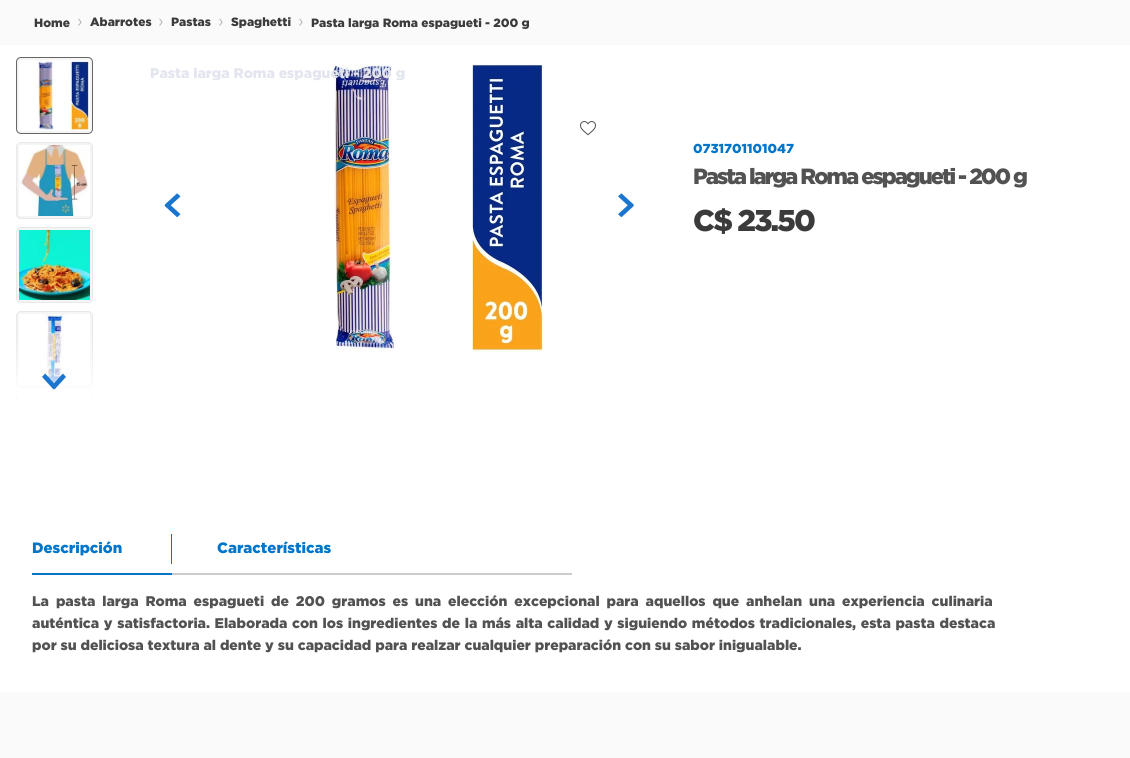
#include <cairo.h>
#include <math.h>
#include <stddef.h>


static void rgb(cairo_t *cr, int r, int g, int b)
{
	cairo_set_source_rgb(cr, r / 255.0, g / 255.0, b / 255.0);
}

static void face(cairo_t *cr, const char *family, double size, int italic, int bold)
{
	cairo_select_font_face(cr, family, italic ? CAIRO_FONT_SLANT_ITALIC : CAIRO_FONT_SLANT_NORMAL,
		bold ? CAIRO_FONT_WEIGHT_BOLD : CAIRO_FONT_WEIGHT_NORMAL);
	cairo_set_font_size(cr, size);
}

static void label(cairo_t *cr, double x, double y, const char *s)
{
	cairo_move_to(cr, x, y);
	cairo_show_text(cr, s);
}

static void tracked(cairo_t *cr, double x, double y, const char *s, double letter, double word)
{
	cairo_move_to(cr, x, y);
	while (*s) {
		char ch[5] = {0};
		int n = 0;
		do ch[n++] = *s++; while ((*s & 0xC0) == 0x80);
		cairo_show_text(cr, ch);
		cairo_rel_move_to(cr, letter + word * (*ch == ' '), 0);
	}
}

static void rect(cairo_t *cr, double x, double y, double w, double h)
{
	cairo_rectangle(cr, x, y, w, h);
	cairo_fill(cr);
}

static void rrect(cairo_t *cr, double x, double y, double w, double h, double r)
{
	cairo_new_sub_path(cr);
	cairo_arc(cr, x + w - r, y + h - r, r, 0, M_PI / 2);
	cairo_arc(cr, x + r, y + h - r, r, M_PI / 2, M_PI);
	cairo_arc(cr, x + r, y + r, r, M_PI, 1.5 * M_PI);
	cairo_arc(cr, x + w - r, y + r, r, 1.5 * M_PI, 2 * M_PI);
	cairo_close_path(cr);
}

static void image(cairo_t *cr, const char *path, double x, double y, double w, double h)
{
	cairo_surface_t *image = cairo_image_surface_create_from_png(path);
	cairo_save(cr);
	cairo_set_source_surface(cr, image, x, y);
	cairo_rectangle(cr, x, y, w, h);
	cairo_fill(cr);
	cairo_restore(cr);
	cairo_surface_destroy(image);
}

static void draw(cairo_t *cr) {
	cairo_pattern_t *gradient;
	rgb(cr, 250, 250, 250);
	cairo_paint(cr);
	face(cr, "Gotham Black", 12, 0, 0);
	rgb(cr, 59, 59, 59);
	label(cr, 34, 27, "Home");
	image(cr, "image0.png", 78, 18, 4, 8);
	label(cr, 90, 26, "Abarrotes");
	image(cr, "image0.png", 159, 18, 4, 8);
	label(cr, 171, 26, "Pastas");
	image(cr, "image0.png", 219, 18, 4, 8);
	label(cr, 231, 26, "Spaghetti");
	image(cr, "image0.png", 299, 18, 4, 8);
	label(cr, 311, 27, "Pasta larga Roma espagueti - 200 g");
	rgb(cr, 255, 255, 255);
	rect(cr, 0, 45, 1130, 647);
	rgb(cr, 245, 245, 245);
	rrect(cr, 16.5, 57.5, 76, 76, 4.5);
	cairo_fill_preserve(cr);
	rgb(cr, 102, 102, 102);
	cairo_set_line_width(cr, 1);
	cairo_stroke(cr);
	image(cr, "image1.png", 19, 60, 71, 71);
	rgb(cr, 245, 245, 245);
	rrect(cr, 16.5, 142.5, 76, 76, 4.5);
	cairo_fill_preserve(cr);
	rgb(cr, 232, 232, 232);
	cairo_stroke(cr);
	image(cr, "image2.png", 19, 145, 71, 71);
	rgb(cr, 245, 245, 245);
	rrect(cr, 16.5, 227.5, 76, 75, 4.5);
	cairo_fill_preserve(cr);
	rgb(cr, 232, 232, 232);
	cairo_stroke(cr);
	image(cr, "image3.png", 19, 230, 71, 70);
	rgb(cr, 245, 245, 245);
	rrect(cr, 16.5, 311.5, 76, 76, 4.5);
	cairo_fill_preserve(cr);
	rgb(cr, 232, 232, 232);
	cairo_stroke(cr);
	image(cr, "image4.png", 19, 314, 71, 71);
	rgb(cr, 245, 245, 245);
	cairo_new_path(cr);
	cairo_move_to(cr, 21, 396);
	cairo_line_to(cr, 88, 396);
	cairo_curve_to(cr, 91, 396, 93, 398, 93, 401);
	cairo_line_to(cr, 93, 397);
	cairo_line_to(cr, 16, 397);
	cairo_line_to(cr, 16, 401);
	cairo_curve_to(cr, 16, 398, 18, 396, 21, 396);
	cairo_close_path(cr);
	cairo_fill(cr);
	cairo_save(cr);
	cairo_rectangle(cr, 16, 57, 80, 340);
	cairo_clip(cr);
	rrect(cr, 16.5, 396.5, 76, 76, 4.5);
	rgb(cr, 232, 232, 232);
	cairo_stroke(cr);
	cairo_restore(cr);
	gradient = cairo_pattern_create_linear(56, 337, 56, 397);
	cairo_pattern_add_color_stop_rgba(gradient, 0, 1, 1, 1, 0);
	cairo_pattern_add_color_stop_rgba(gradient, 1, 1, 1, 1, 1);
	cairo_set_source(cr, gradient);
	cairo_pattern_destroy(gradient);
	rect(cr, 16, 339, 77, 58);
	image(cr, "image5.png", 42, 373, 24, 17);
	image(cr, "image6.png", 332, 64, 212, 289);
	image(cr, "image7.png", 164, 193, 17, 24);
	image(cr, "image8.png", 618, 193, 16, 24);
	face(cr, "Gotham Black", 14, 0, 0);
	rgb(cr, 227, 229, 239);
	label(cr, 150, 78, "Pasta larga Roma espagueti - 200 g");
	image(cr, "image9.png", 580, 121, 16, 15);
	face(cr, "Gotham Black", 13, 0, 0);
	rgb(cr, 0, 117, 201);
	label(cr, 693, 153, "0731701101047");
	face(cr, "Gotham Black", 22, 0, 0);
	rgb(cr, 82, 82, 82);
	tracked(cr, 693, 184, "Pasta larga Roma espagueti - 200 g", -2, 0);
	face(cr, "Gotham Black", 30, 0, 0);
	rgb(cr, 59, 59, 59);
	tracked(cr, 693, 231, "C$ 23.50", -2, 0);
	rgb(cr, 0, 117, 201);
	rect(cr, 32, 573, 140, 2);
	rect(cr, 171, 534, 1, 30);
	face(cr, "Gotham Black", 15, 0, 0);
	label(cr, 32, 553, "Descripción");
	rgb(cr, 204, 204, 204);
	rect(cr, 172, 573, 400, 2);
	rgb(cr, 0, 117, 201);
	label(cr, 217, 553, "Características");
	face(cr, "Gotham Black", 14, 0, 0);
	rgb(cr, 82, 82, 82);
	tracked(cr, 32, 606, "La pasta larga Roma espagueti de 200 gramos es una elección excepcional para aquellos que anhelan una experiencia culinaria", 0, 3);
	tracked(cr, 32, 628, "auténtica y satisfactoria. Elaborada con los ingredientes de la más alta calidad y siguiendo métodos tradicionales, esta pasta destaca", 0, 0.75);
	label(cr, 32, 650, "por su deliciosa textura al dente y su capacidad para realzar cualquier preparación con su sabor inigualable.");
}

int main(void) {
	cairo_surface_t *surface = cairo_image_surface_create(CAIRO_FORMAT_RGB24, 1130, 758);
	cairo_t *cr = cairo_create(surface);
	cairo_font_options_t *options = cairo_font_options_create();
	cairo_font_options_set_hint_metrics(options, CAIRO_HINT_METRICS_OFF);
	cairo_font_options_set_hint_style(options, CAIRO_HINT_STYLE_NONE);
	cairo_set_font_options(cr, options);
	cairo_set_miter_limit(cr, 4);
	draw(cr);
	cairo_surface_write_to_png(surface, "render.png");
	cairo_font_options_destroy(options);
	cairo_destroy(cr);
	cairo_surface_destroy(surface);
	return 0;
}
